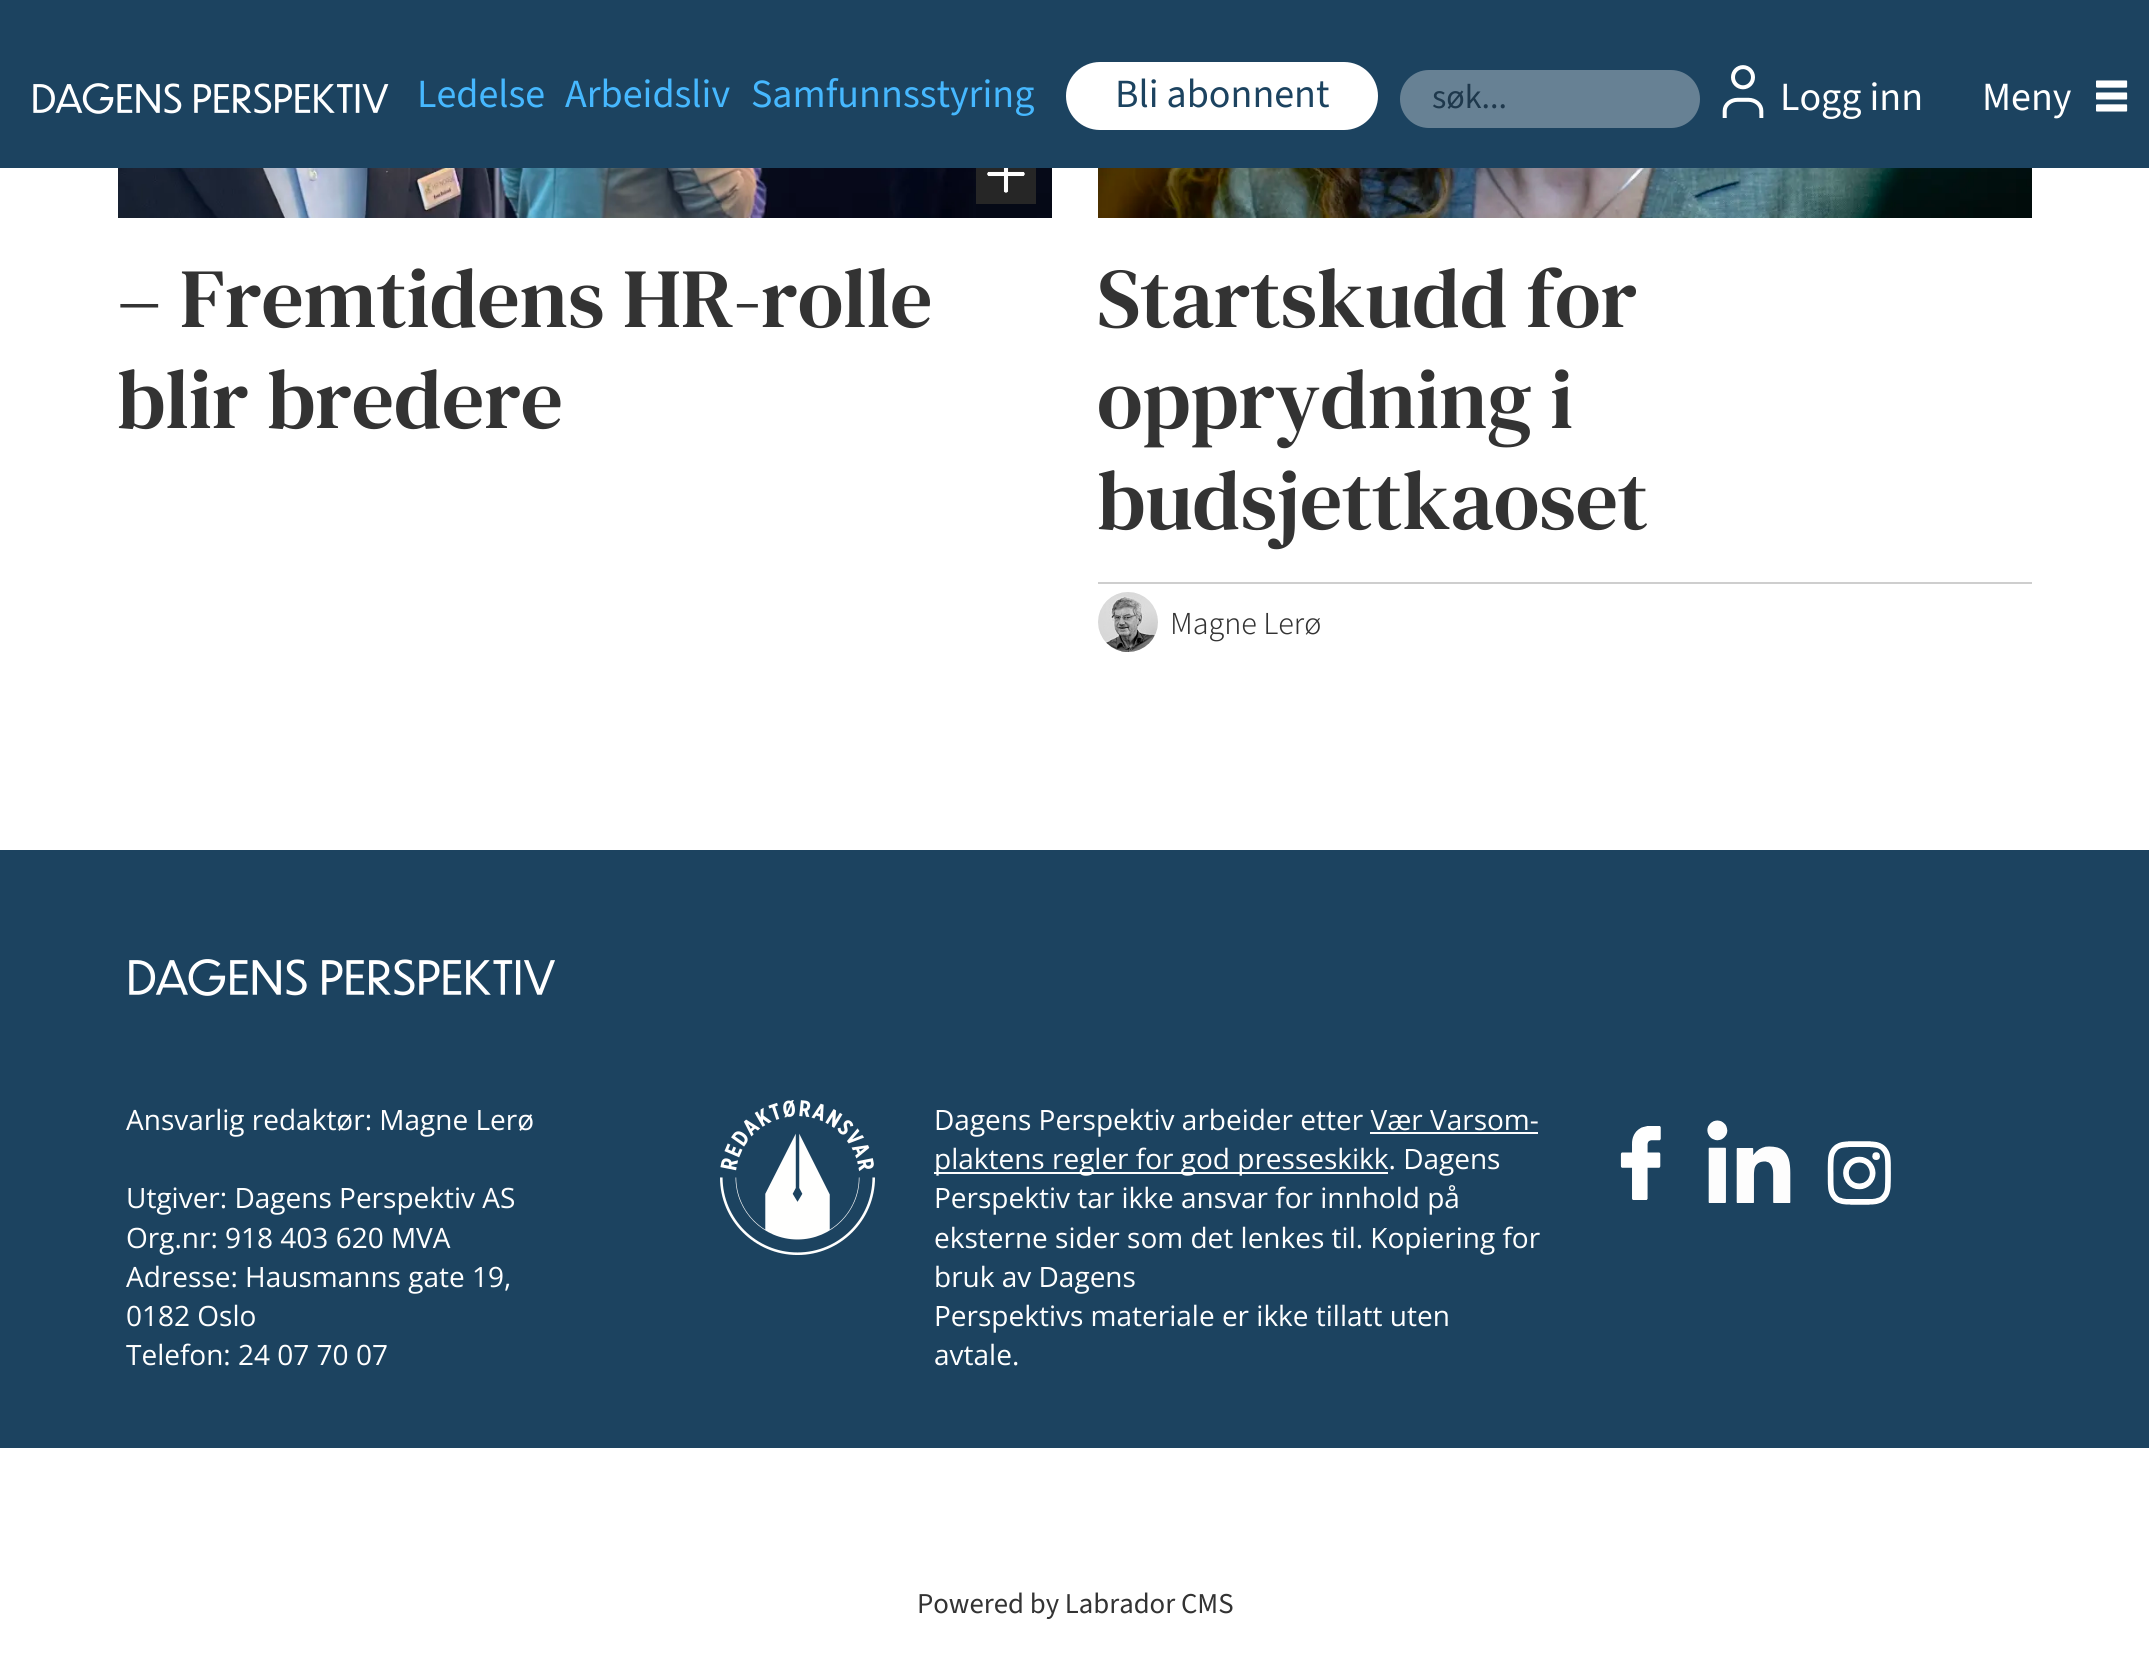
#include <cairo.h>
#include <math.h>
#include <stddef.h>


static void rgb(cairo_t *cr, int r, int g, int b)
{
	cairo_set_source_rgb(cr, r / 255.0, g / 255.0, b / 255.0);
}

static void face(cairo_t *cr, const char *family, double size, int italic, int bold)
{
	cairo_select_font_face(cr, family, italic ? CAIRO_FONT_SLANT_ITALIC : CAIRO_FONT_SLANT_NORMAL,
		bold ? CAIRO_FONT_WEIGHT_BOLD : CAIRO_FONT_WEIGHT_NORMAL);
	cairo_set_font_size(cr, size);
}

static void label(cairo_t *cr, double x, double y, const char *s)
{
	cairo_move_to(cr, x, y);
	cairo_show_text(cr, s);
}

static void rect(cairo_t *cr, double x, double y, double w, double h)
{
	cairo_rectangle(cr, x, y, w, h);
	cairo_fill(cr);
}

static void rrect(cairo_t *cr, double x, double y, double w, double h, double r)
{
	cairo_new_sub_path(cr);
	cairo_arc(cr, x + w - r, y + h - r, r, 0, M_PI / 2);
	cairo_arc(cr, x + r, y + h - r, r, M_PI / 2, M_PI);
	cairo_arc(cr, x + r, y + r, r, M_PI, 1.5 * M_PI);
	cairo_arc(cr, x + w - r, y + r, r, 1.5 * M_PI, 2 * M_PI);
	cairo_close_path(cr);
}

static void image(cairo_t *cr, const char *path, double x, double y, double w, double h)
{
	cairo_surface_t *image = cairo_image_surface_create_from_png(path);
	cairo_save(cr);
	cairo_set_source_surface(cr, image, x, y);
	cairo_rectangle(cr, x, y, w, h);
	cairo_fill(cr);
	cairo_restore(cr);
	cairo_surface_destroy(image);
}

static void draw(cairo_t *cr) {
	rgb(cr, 255, 255, 255);
	cairo_paint(cr);
	rgb(cr, 28, 67, 96);
	rect(cr, 0, 0, 2149, 168);
	image(cr, "image0.png", 33, 83, 356, 31);
	face(cr, "Source Sans 3", 40, 0, 0);
	rgb(cr, 70, 184, 255);
	label(cr, 417, 107, "Ledelse");
	label(cr, 565, 107, "Arbeidsliv");
	label(cr, 751, 107, "Samfunnsstyring");
	rgb(cr, 255, 255, 255);
	rrect(cr, 1066, 62, 312, 68, 34);
	cairo_fill(cr);
	rgb(cr, 28, 67, 96);
	label(cr, 1115, 107, "Bli abonnent");
	rgb(cr, 103, 129, 148);
	rrect(cr, 1400, 70, 300, 58, 29);
	cairo_fill(cr);
	face(cr, "Source Sans 3", 34, 0, 0);
	rgb(cr, 30, 56, 76);
	label(cr, 1432, 108, "søk...");
	image(cr, "image1.png", 1722, 65, 42, 53);
	face(cr, "Source Sans 3", 40, 0, 0);
	rgb(cr, 255, 255, 255);
	label(cr, 1780, 110, "Logg inn");
	label(cr, 1982, 110, "Meny");
	image(cr, "image2.png", 2096, 80, 32, 32);
	image(cr, "image3.png", 118, 168, 934, 50);
	image(cr, "image4.png", 976, 168, 60, 36);
	face(cr, "DM Serif Text", 84, 0, 0);
	rgb(cr, 51, 51, 51);
	label(cr, 117, 327, "– Fremtidens HR-rolle");
	label(cr, 117, 428, "blir bredere");
	image(cr, "image5.png", 1098, 168, 934, 50);
	label(cr, 1097, 327, "Startskudd for");
	label(cr, 1097, 428, "opprydning i");
	label(cr, 1097, 529, "budsjettkaoset");
	rgb(cr, 206, 206, 206);
	rect(cr, 1098, 582, 934, 2);
	image(cr, "image6.png", 1098, 592, 60, 60);
	face(cr, "Assistant Light", 32, 0, 0);
	rgb(cr, 51, 51, 51);
	label(cr, 1170, 634, "Magne Lerø");
	rgb(cr, 28, 67, 96);
	rect(cr, 0, 850, 2149, 598);
	image(cr, "image7.png", 129, 959, 426, 37);
	face(cr, "Open Sans", 28, 0, 0);
	rgb(cr, 255, 255, 255);
	label(cr, 126, 1130, "Ansvarlig redaktør: Magne Lerø");
	label(cr, 126, 1208, "Utgiver: Dagens Perspektiv AS");
	label(cr, 126, 1248, "Org.nr: 918 403 620 MVA");
	label(cr, 126, 1287, "Adresse: Hausmanns gate 19,");
	label(cr, 126, 1326, "0182 Oslo");
	label(cr, 126, 1365, "Telefon: 24 07 70 07");
	image(cr, "image8.png", 720, 1100, 155, 155);
	label(cr, 934, 1130, "Dagens Perspektiv arbeider etter Vær Varsom-");
	rect(cr, 934, 1172, 454, 2);
	label(cr, 934, 1169, "plaktens regler for god presseskikk. Dagens");
	rect(cr, 1370, 1132, 168, 2);
	label(cr, 934, 1208, "Perspektiv tar ikke ansvar for innhold på");
	label(cr, 934, 1248, "eksterne sider som det lenkes til. Kopiering for");
	label(cr, 934, 1287, "bruk av Dagens");
	label(cr, 934, 1326, "Perspektivs materiale er ikke tillatt uten");
	label(cr, 934, 1365, "avtale.");
	image(cr, "image9.png", 1620, 1126, 41, 74);
	image(cr, "image10.png", 1707, 1120, 84, 83);
	image(cr, "image11.png", 1827, 1141, 64, 64);
	face(cr, "Source Sans 3", 28.75, 0, 0);
	rgb(cr, 51, 51, 51);
	label(cr, 917, 1613, "Powered by Labrador CMS");
}

int main(void) {
	cairo_surface_t *surface = cairo_image_surface_create(CAIRO_FORMAT_RGB24, 2149, 1663);
	cairo_t *cr = cairo_create(surface);
	cairo_font_options_t *options = cairo_font_options_create();
	cairo_font_options_set_hint_metrics(options, CAIRO_HINT_METRICS_OFF);
	cairo_font_options_set_hint_style(options, CAIRO_HINT_STYLE_NONE);
	cairo_set_font_options(cr, options);
	cairo_set_miter_limit(cr, 4);
	draw(cr);
	cairo_surface_write_to_png(surface, "render.png");
	cairo_font_options_destroy(options);
	cairo_destroy(cr);
	cairo_surface_destroy(surface);
	return 0;
}
